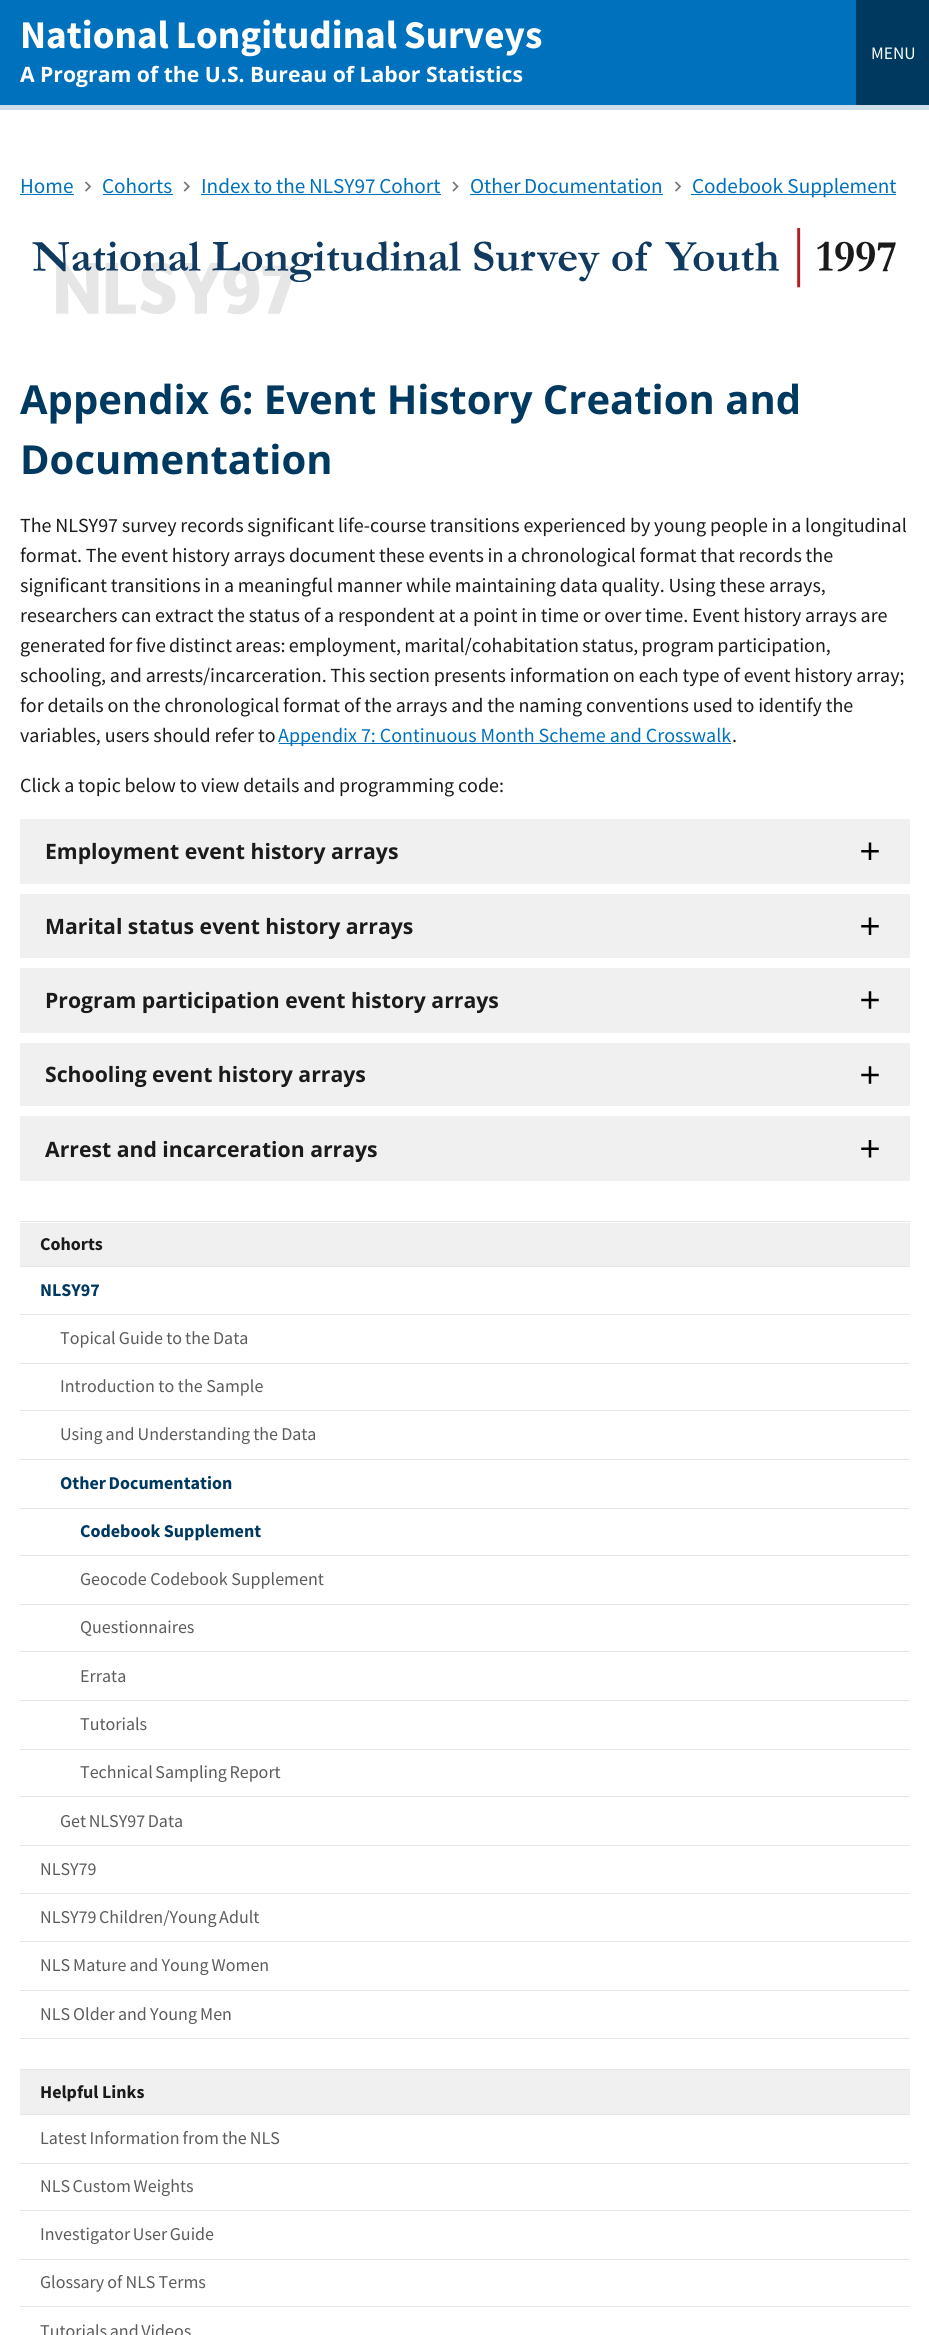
#include <cairo.h>
#include <math.h>
#include <stddef.h>


static void rgb(cairo_t *cr, int r, int g, int b)
{
	cairo_set_source_rgb(cr, r / 255.0, g / 255.0, b / 255.0);
}

static void face(cairo_t *cr, const char *family, double size, int italic, int bold)
{
	cairo_select_font_face(cr, family, italic ? CAIRO_FONT_SLANT_ITALIC : CAIRO_FONT_SLANT_NORMAL,
		bold ? CAIRO_FONT_WEIGHT_BOLD : CAIRO_FONT_WEIGHT_NORMAL);
	cairo_set_font_size(cr, size);
}

static void label(cairo_t *cr, double x, double y, const char *s)
{
	cairo_move_to(cr, x, y);
	cairo_show_text(cr, s);
}

static void tracked(cairo_t *cr, double x, double y, const char *s, double letter, double word)
{
	cairo_move_to(cr, x, y);
	while (*s) {
		char ch[5] = {0};
		int n = 0;
		do ch[n++] = *s++; while ((*s & 0xC0) == 0x80);
		cairo_show_text(cr, ch);
		cairo_rel_move_to(cr, letter + word * (*ch == ' '), 0);
	}
}

static void rect(cairo_t *cr, double x, double y, double w, double h)
{
	cairo_rectangle(cr, x, y, w, h);
	cairo_fill(cr);
}

static void image(cairo_t *cr, const char *path, double x, double y, double w, double h)
{
	cairo_surface_t *image = cairo_image_surface_create_from_png(path);
	cairo_save(cr);
	cairo_set_source_surface(cr, image, x, y);
	cairo_rectangle(cr, x, y, w, h);
	cairo_fill(cr);
	cairo_restore(cr);
	cairo_surface_destroy(image);
}

static void draw(cairo_t *cr) {
	rgb(cr, 255, 255, 255);
	cairo_paint(cr);
	rgb(cr, 0, 113, 188);
	rect(cr, 0, 0, 856, 105);
	rgb(cr, 205, 222, 234);
	rect(cr, 0, 105, 929, 5);
	face(cr, "Source Sans Pro", 39.25, 0, 1);
	rgb(cr, 255, 255, 255);
	tracked(cr, 20, 48, "National Longitudinal Surveys", 0, -1);
	face(cr, "Noto Sans", 21.2, 0, 1);
	label(cr, 20, 82, "A");
	face(cr, "Open Sans", 21.2, 0, 1);
	label(cr, 40, 82, "Program of the U.S. Bureau of Labor Statistics");
	rgb(cr, 0, 57, 96);
	rect(cr, 856, 0, 73, 105);
	face(cr, "Source Sans Pro", 17.5, 0, 0);
	rgb(cr, 255, 255, 255);
	label(cr, 871, 59, "MENU");
	face(cr, "Source Sans Pro", 21.2, 0, 0);
	rgb(cr, 0, 113, 188);
	label(cr, 20, 193, "Home");
	rect(cr, 20, 194, 54, 1);
	image(cr, "image0.png", 85, 181, 7, 11);
	label(cr, 102, 193, "Cohorts");
	rect(cr, 103, 194, 70, 1);
	image(cr, "image1.png", 183, 181, 7, 11);
	tracked(cr, 201, 193, "Index to the NLSY97 Cohort", 0, -0.5);
	rect(cr, 201, 194, 240, 1);
	image(cr, "image2.png", 452, 181, 7, 11);
	tracked(cr, 470, 193, "Other Documentation", 0, -1);
	rect(cr, 470, 194, 193, 1);
	image(cr, "image0.png", 675, 181, 7, 11);
	rect(cr, 691, 194, 205, 1);
	label(cr, 692, 193, "Codebook Supplement");
	image(cr, "image3.png", 32, 228, 864, 87);
	face(cr, "Open Sans", 40, 0, 1);
	rgb(cr, 0, 57, 96);
	label(cr, 20, 414, "Appendix 6: Event History Creation and");
	label(cr, 20, 474, "Documentation");
	face(cr, "Source Sans Pro", 20, 0, 0);
	rgb(cr, 27, 27, 27);
	tracked(cr, 20, 532, "The NLSY97 survey records significant life-course transitions experienced by young people in a longitudinal", 0, -0.25);
	tracked(cr, 20, 562, "format. The event history arrays document these events in a chronological format that records the", 0, -0.25);
	tracked(cr, 20, 592, "significant transitions in a meaningful manner while maintaining data quality. Using these arrays,", 0, -0.25);
	tracked(cr, 20, 622, "researchers can extract the status of a respondent at a point in time or over time. Event history arrays are", 0, -0.25);
	tracked(cr, 20, 652, "generated for five distinct areas: employment, marital/cohabitation status, program participation,", 0, -0.75);
	tracked(cr, 20, 682, "schooling, and arrests/incarceration. This section presents information on each type of event history array;", 0, -0.25);
	tracked(cr, 20, 712, "for details on the chronological format of the arrays and the naming conventions used to identify the", 0, -0.2);
	label(cr, 20, 742, "variables, users should refer to");
	rgb(cr, 0, 113, 188);
	rect(cr, 279, 743, 452, 1);
	label(cr, 278, 742, "Appendix 7: Continuous Month Scheme and Crosswalk");
	rgb(cr, 27, 27, 27);
	label(cr, 732, 742, ".");
	tracked(cr, 20, 792, "Click a topic below to view details and programming code:", 0, -0.25);
	rgb(cr, 240, 240, 240);
	rect(cr, 20, 819, 890, 65);
	image(cr, "image4.png", 861, 842, 18, 18);
	face(cr, "Open Sans", 21.2, 0, 1);
	rgb(cr, 27, 27, 27);
	label(cr, 45, 859, "Employment event history arrays");
	rgb(cr, 240, 240, 240);
	rect(cr, 20, 894, 890, 64);
	image(cr, "image4.png", 861, 917, 18, 18);
	rgb(cr, 27, 27, 27);
	label(cr, 45, 934, "Marital status event history arrays");
	rgb(cr, 240, 240, 240);
	rect(cr, 20, 968, 890, 65);
	image(cr, "image5.png", 861, 991, 18, 18);
	rgb(cr, 27, 27, 27);
	label(cr, 45, 1008, "Program participation event history arrays");
	rgb(cr, 240, 240, 240);
	rect(cr, 20, 1043, 890, 63);
	image(cr, "image5.png", 861, 1066, 18, 18);
	rgb(cr, 27, 27, 27);
	label(cr, 45, 1082, "Schooling event history arrays");
	rgb(cr, 240, 240, 240);
	rect(cr, 20, 1116, 890, 65);
	image(cr, "image6.png", 861, 1140, 18, 18);
	rgb(cr, 27, 27, 27);
	label(cr, 45, 1157, "Arrest and incarceration arrays");
	rgb(cr, 230, 230, 230);
	rect(cr, 20, 2038, 890, 1);
	rect(cr, 20, 1221, 890, 1);
	rgb(cr, 240, 240, 240);
	rect(cr, 20, 1223, 890, 43);
	face(cr, "Source Sans Pro", 18, 0, 1);
	rgb(cr, 27, 27, 27);
	label(cr, 40, 1250, "Cohorts");
	rgb(cr, 230, 230, 230);
	rect(cr, 20, 1266, 890, 1);
	rgb(cr, 0, 57, 96);
	label(cr, 40, 1296, "NLSY97");
	rgb(cr, 230, 230, 230);
	rect(cr, 20, 1314, 890, 1);
	face(cr, "Source Sans Pro", 18, 0, 0);
	rgb(cr, 92, 92, 92);
	tracked(cr, 60, 1344, "Topical Guide to the Data", 0, -0.5);
	rgb(cr, 230, 230, 230);
	rect(cr, 20, 1363, 890, 1);
	rgb(cr, 92, 92, 92);
	label(cr, 60, 1392, "Introduction to the Sample");
	rgb(cr, 230, 230, 230);
	rect(cr, 20, 1410, 890, 1);
	rgb(cr, 92, 92, 92);
	tracked(cr, 60, 1440, "Using and Understanding the Data", 0, -0.5);
	rgb(cr, 230, 230, 230);
	rect(cr, 20, 1459, 890, 1);
	face(cr, "Source Sans Pro", 18, 0, 1);
	rgb(cr, 0, 57, 96);
	tracked(cr, 60, 1489, "Other Documentation", 0, -1);
	rgb(cr, 230, 230, 230);
	rect(cr, 20, 1508, 890, 1);
	rgb(cr, 0, 57, 96);
	label(cr, 80, 1537, "Codebook Supplement");
	rgb(cr, 230, 230, 230);
	rect(cr, 20, 1555, 890, 1);
	face(cr, "Source Sans Pro", 18, 0, 0);
	rgb(cr, 92, 92, 92);
	label(cr, 80, 1585, "Geocode Codebook Supplement");
	rgb(cr, 230, 230, 230);
	rect(cr, 20, 1604, 890, 1);
	rgb(cr, 92, 92, 92);
	label(cr, 80, 1633, "Questionnaires");
	rgb(cr, 230, 230, 230);
	rect(cr, 20, 1651, 890, 1);
	rgb(cr, 92, 92, 92);
	label(cr, 80, 1682, "Errata");
	rgb(cr, 230, 230, 230);
	rect(cr, 20, 1700, 890, 1);
	rgb(cr, 92, 92, 92);
	label(cr, 80, 1730, "Tutorials");
	rgb(cr, 230, 230, 230);
	rect(cr, 20, 1749, 890, 1);
	rgb(cr, 92, 92, 92);
	tracked(cr, 80, 1778, "Technical Sampling Report", 0, -1);
	rgb(cr, 230, 230, 230);
	rect(cr, 20, 1796, 890, 1);
	rgb(cr, 92, 92, 92);
	tracked(cr, 60, 1827, "Get NLSY97 Data", 0, -1);
	rgb(cr, 230, 230, 230);
	rect(cr, 20, 1845, 890, 1);
	rgb(cr, 92, 92, 92);
	label(cr, 40, 1875, "NLSY79");
	rgb(cr, 230, 230, 230);
	rect(cr, 20, 1893, 890, 1);
	rgb(cr, 92, 92, 92);
	tracked(cr, 40, 1923, "NLSY79 Children/Young Adult", 0, -1);
	rgb(cr, 230, 230, 230);
	rect(cr, 20, 1941, 890, 1);
	rgb(cr, 92, 92, 92);
	tracked(cr, 40, 1971, "NLS Mature and Young Women", 0, -0.5);
	rgb(cr, 230, 230, 230);
	rect(cr, 20, 1990, 890, 1);
	rgb(cr, 92, 92, 92);
	tracked(cr, 40, 2020, "NLS Older and Young Men", 0, -0.5);
	rgb(cr, 230, 230, 230);
	rect(cr, 20, 2069, 890, 1);
	rgb(cr, 240, 240, 240);
	rect(cr, 20, 2070, 890, 44);
	face(cr, "Source Sans Pro", 18, 0, 1);
	rgb(cr, 27, 27, 27);
	label(cr, 40, 2098, "Helpful Links");
	rgb(cr, 230, 230, 230);
	rect(cr, 20, 2114, 890, 1);
	face(cr, "Source Sans Pro", 18, 0, 0);
	rgb(cr, 92, 92, 92);
	tracked(cr, 40, 2144, "Latest Information from the NLS", 0, -0.5);
	rgb(cr, 230, 230, 230);
	rect(cr, 20, 2163, 890, 1);
	rgb(cr, 92, 92, 92);
	tracked(cr, 40, 2192, "NLS Custom Weights", 0, -1);
	rgb(cr, 230, 230, 230);
	rect(cr, 20, 2210, 890, 1);
	rgb(cr, 92, 92, 92);
	tracked(cr, 40, 2240, "Investigator User Guide", 0, -1);
	rgb(cr, 230, 230, 230);
	rect(cr, 20, 2259, 890, 1);
	rgb(cr, 92, 92, 92);
	tracked(cr, 40, 2288, "Glossary of NLS Terms", 0, -0.5);
	rgb(cr, 230, 230, 230);
	rect(cr, 20, 2306, 890, 1);
	rgb(cr, 92, 92, 92);
	tracked(cr, 40, 2337, "Tutorials and Videos", 0, -1);
}

int main(void) {
	cairo_surface_t *surface = cairo_image_surface_create(CAIRO_FORMAT_RGB24, 929, 2335);
	cairo_t *cr = cairo_create(surface);
	cairo_font_options_t *options = cairo_font_options_create();
	cairo_font_options_set_hint_metrics(options, CAIRO_HINT_METRICS_OFF);
	cairo_font_options_set_hint_style(options, CAIRO_HINT_STYLE_NONE);
	cairo_set_font_options(cr, options);
	cairo_set_miter_limit(cr, 4);
	draw(cr);
	cairo_surface_write_to_png(surface, "render.png");
	cairo_font_options_destroy(options);
	cairo_destroy(cr);
	cairo_surface_destroy(surface);
	return 0;
}
